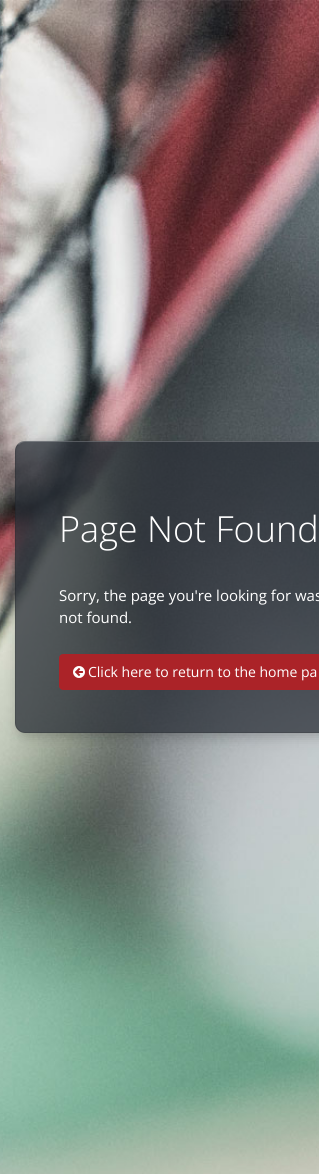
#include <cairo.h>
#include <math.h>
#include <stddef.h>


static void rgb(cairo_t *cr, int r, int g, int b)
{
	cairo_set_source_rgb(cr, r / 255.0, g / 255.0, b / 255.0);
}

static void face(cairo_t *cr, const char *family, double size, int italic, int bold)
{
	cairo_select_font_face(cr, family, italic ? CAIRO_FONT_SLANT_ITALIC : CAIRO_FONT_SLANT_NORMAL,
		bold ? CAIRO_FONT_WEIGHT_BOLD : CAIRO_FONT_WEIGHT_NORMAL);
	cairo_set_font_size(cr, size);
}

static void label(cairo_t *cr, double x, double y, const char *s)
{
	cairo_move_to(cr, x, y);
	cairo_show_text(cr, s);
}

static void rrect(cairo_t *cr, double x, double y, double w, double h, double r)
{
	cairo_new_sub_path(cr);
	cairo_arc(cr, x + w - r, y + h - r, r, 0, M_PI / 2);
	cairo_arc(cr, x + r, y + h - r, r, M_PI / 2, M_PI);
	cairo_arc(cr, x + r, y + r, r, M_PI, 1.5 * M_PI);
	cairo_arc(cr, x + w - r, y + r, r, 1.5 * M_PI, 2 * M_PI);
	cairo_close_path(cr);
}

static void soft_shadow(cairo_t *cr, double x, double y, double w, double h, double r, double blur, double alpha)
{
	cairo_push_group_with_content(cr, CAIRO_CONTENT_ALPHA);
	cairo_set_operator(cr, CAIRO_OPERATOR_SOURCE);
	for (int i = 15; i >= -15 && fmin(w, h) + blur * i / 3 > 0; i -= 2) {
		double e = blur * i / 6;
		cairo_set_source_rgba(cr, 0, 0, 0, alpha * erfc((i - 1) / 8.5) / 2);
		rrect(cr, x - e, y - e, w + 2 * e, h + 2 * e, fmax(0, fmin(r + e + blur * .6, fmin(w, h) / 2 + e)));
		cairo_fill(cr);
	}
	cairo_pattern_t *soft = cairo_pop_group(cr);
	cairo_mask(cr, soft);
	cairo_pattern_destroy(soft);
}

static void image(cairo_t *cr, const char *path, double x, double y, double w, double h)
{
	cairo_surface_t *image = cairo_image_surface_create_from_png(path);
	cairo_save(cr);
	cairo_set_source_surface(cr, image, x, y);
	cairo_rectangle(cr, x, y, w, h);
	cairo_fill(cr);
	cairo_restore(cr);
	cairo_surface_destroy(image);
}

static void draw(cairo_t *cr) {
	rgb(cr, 255, 255, 255);
	cairo_paint(cr);
	image(cr, "image0.png", 0, 0, 319, 1174);
	cairo_save(cr);
	cairo_set_fill_rule(cr, CAIRO_FILL_RULE_EVEN_ODD);
	cairo_new_path(cr);
	cairo_move_to(cr, 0, 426);
	cairo_line_to(cr, 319, 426);
	cairo_line_to(cr, 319, 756);
	cairo_line_to(cr, 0, 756);
	cairo_close_path(cr);
	cairo_move_to(cr, 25, 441);
	cairo_line_to(cr, 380, 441);
	cairo_curve_to(cr, 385.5, 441, 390, 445.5, 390, 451);
	cairo_line_to(cr, 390, 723);
	cairo_curve_to(cr, 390, 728.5, 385.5, 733, 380, 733);
	cairo_line_to(cr, 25, 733);
	cairo_curve_to(cr, 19.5, 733, 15, 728.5, 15, 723);
	cairo_line_to(cr, 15, 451);
	cairo_curve_to(cr, 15, 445.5, 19.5, 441, 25, 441);
	cairo_close_path(cr);
	cairo_clip(cr);
	rgb(cr, 0, 0, 0);
	soft_shadow(cr, 17, 445, 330, 292, 10, 6, 0.2);
	cairo_restore(cr);
	cairo_set_source_rgba(cr, 0.165, 0.184, 0.216, 0.75);
	rrect(cr, 15, 441, 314, 292, 10);
	cairo_fill(cr);
	cairo_new_path(cr);
	cairo_move_to(cr, 18.5, 444.5);
	cairo_curve_to(cr, 20, 442.5, 22.5, 441.5, 25, 441.5);
	cairo_line_to(cr, 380, 441.5);
	cairo_curve_to(cr, 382.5, 441.5, 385, 442.5, 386.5, 444.5);
	cairo_set_source_rgba(cr, 1, 1, 1, 0.2);
	cairo_set_line_width(cr, 1);
	cairo_stroke(cr);
	cairo_new_path(cr);
	cairo_move_to(cr, 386.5, 444.5);
	cairo_curve_to(cr, 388.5, 446, 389.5, 448.5, 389.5, 451);
	cairo_line_to(cr, 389.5, 723);
	cairo_curve_to(cr, 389.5, 725.5, 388.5, 728, 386.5, 729.5);
	cairo_curve_to(cr, 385, 731.5, 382.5, 732.5, 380, 732.5);
	cairo_line_to(cr, 25, 732.5);
	cairo_curve_to(cr, 22.5, 732.5, 20, 731.5, 18.5, 729.5);
	cairo_curve_to(cr, 16.5, 728, 15.5, 725.5, 15.5, 723);
	cairo_line_to(cr, 15.5, 451);
	cairo_curve_to(cr, 15.5, 448.5, 16.5, 446, 18.5, 444.5);
	cairo_set_source_rgba(cr, 0, 0, 0, 0.12);
	cairo_stroke(cr);
	face(cr, "Open Sans Light", 36, 0, 0);
	rgb(cr, 255, 255, 255);
	label(cr, 59, 542, "Page Not Found");
	face(cr, "Open Sans", 15, 0, 0);
	label(cr, 59, 601, "Sorry, the page you're looking for was");
	label(cr, 59, 623, "not found.");
	rgb(cr, 171, 35, 40);
	rrect(cr, 60, 655, 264, 34, 3);
	cairo_fill_preserve(cr);
	cairo_set_line_width(cr, 2);
	cairo_stroke(cr);
	image(cr, "image1.png", 73, 666, 12, 12);
	face(cr, "Open Sans", 14, 0, 0);
	rgb(cr, 255, 255, 255);
	label(cr, 88, 677, "Click here to return to the home pa");
}

int main(void) {
	cairo_surface_t *surface = cairo_image_surface_create(CAIRO_FORMAT_RGB24, 319, 1174);
	cairo_t *cr = cairo_create(surface);
	cairo_font_options_t *options = cairo_font_options_create();
	cairo_font_options_set_hint_metrics(options, CAIRO_HINT_METRICS_OFF);
	cairo_font_options_set_hint_style(options, CAIRO_HINT_STYLE_NONE);
	cairo_set_font_options(cr, options);
	cairo_set_miter_limit(cr, 4);
	draw(cr);
	cairo_surface_write_to_png(surface, "render.png");
	cairo_font_options_destroy(options);
	cairo_destroy(cr);
	cairo_surface_destroy(surface);
	return 0;
}
